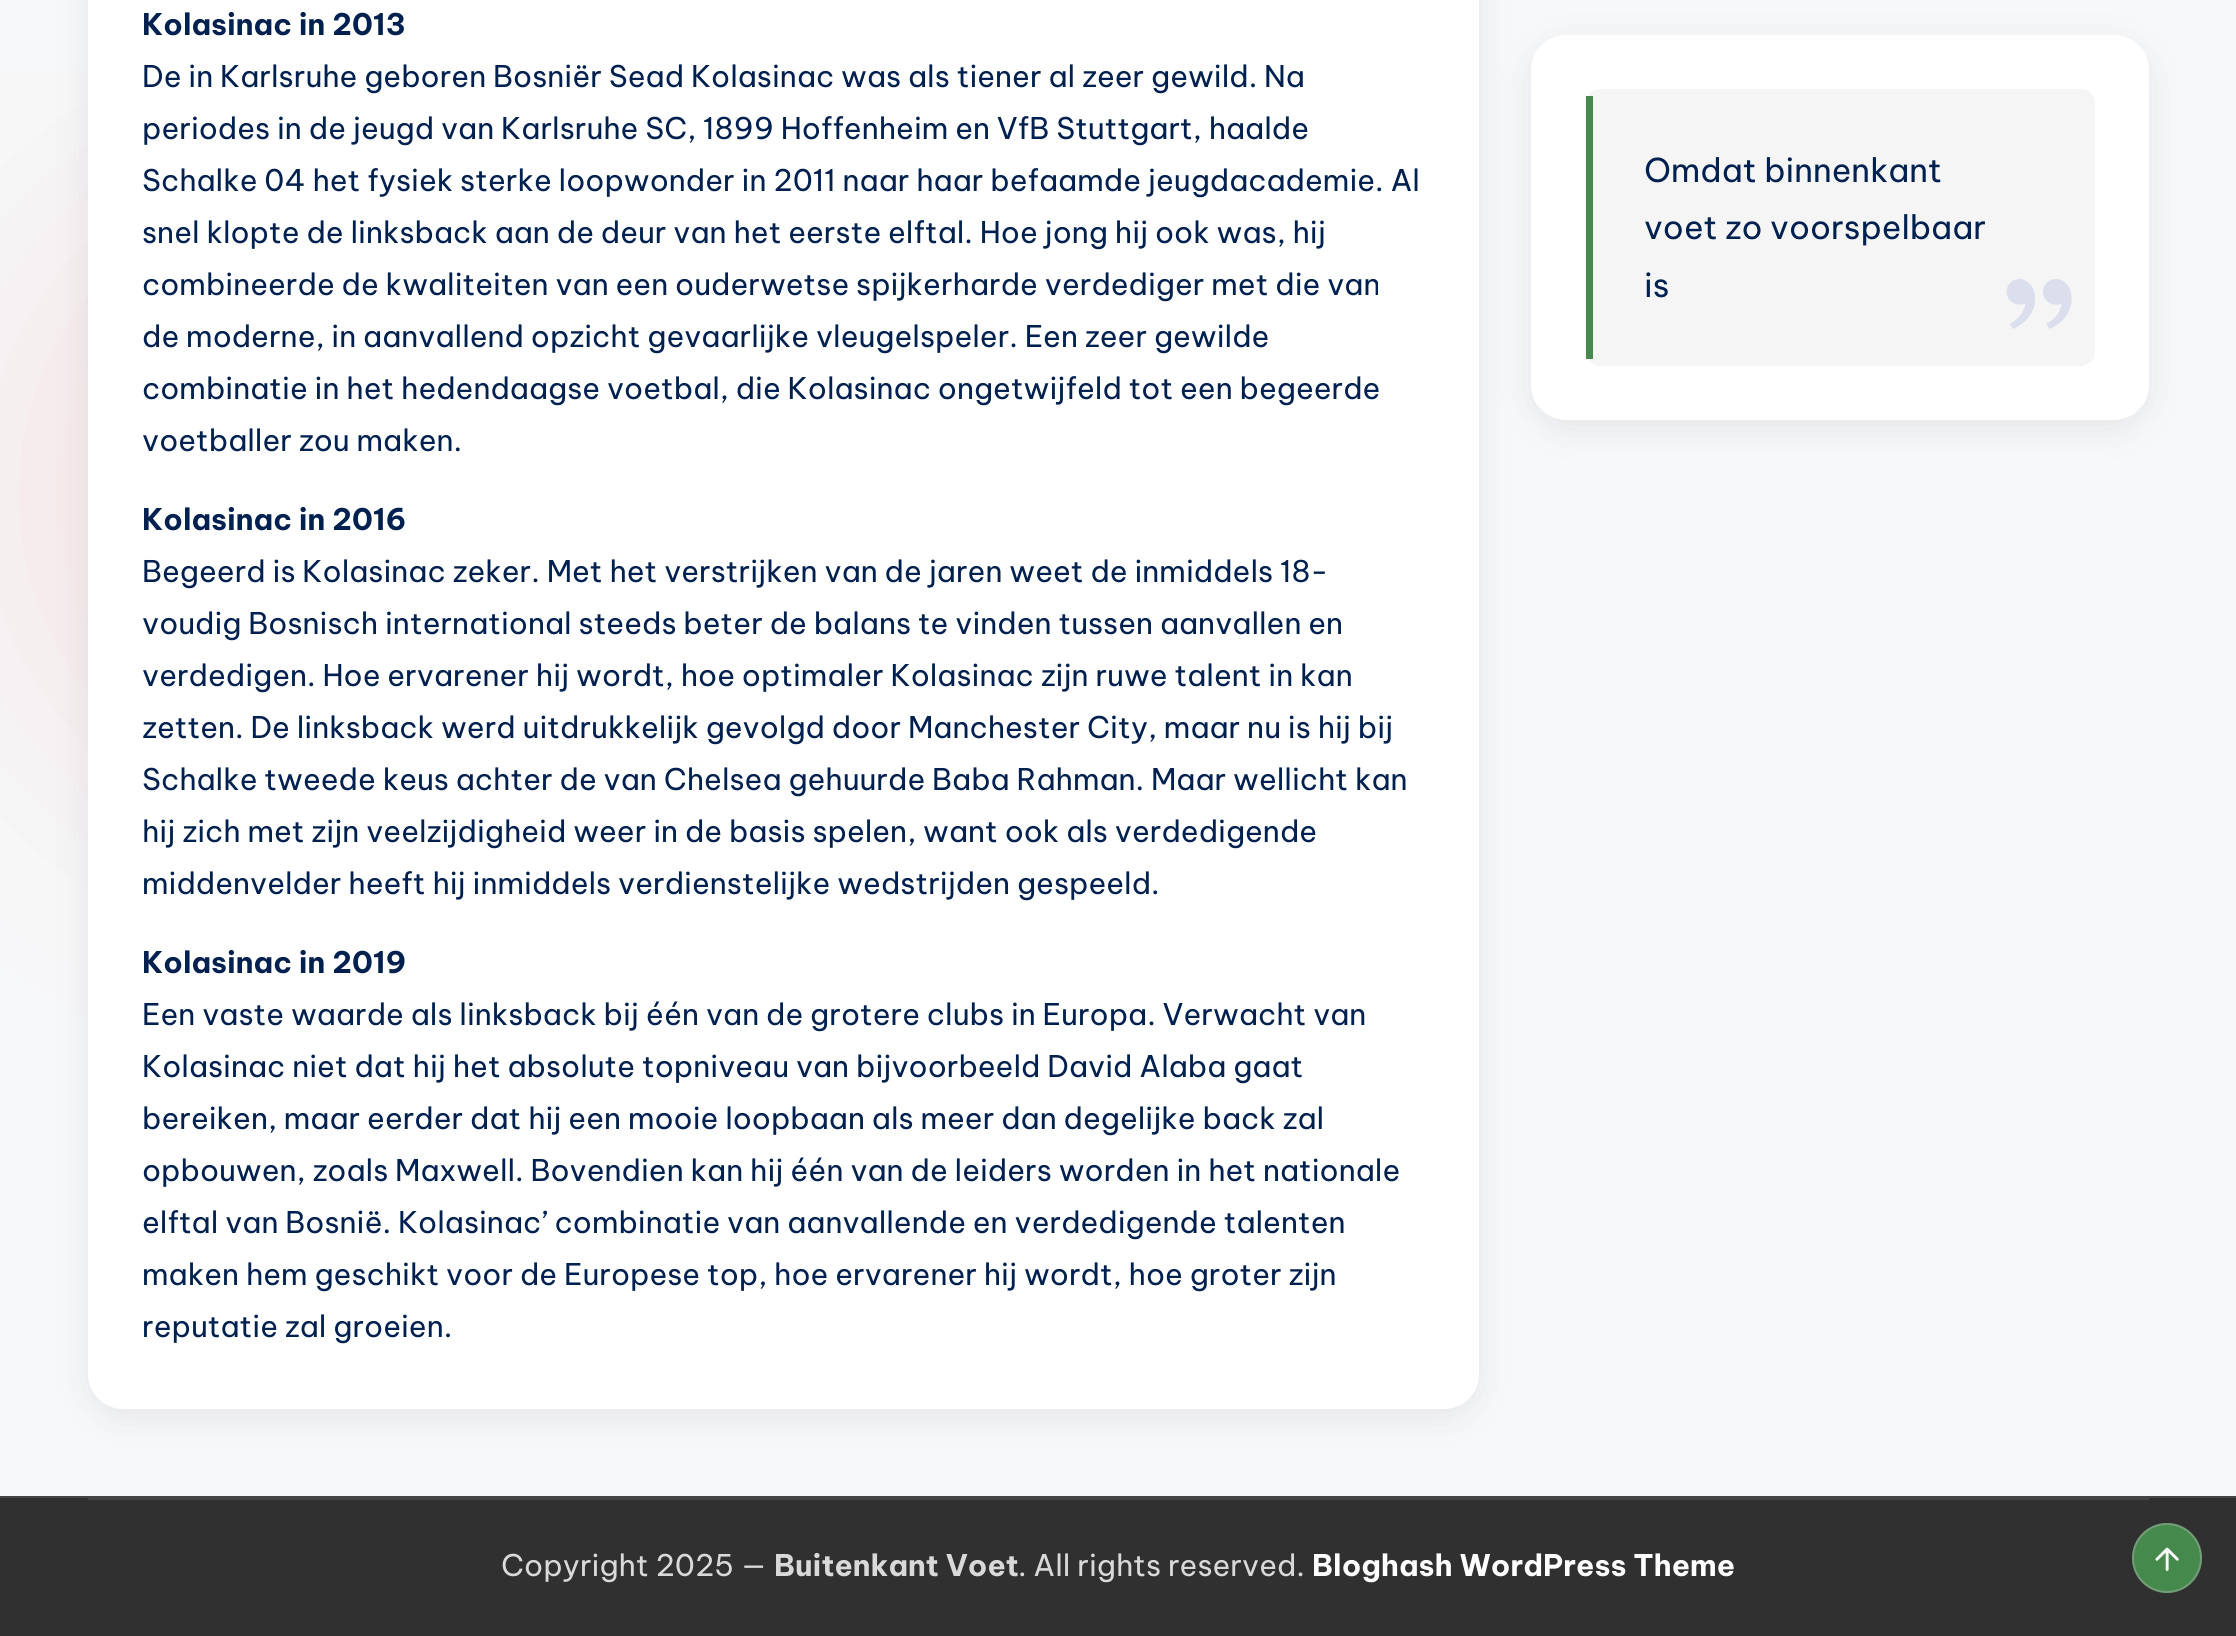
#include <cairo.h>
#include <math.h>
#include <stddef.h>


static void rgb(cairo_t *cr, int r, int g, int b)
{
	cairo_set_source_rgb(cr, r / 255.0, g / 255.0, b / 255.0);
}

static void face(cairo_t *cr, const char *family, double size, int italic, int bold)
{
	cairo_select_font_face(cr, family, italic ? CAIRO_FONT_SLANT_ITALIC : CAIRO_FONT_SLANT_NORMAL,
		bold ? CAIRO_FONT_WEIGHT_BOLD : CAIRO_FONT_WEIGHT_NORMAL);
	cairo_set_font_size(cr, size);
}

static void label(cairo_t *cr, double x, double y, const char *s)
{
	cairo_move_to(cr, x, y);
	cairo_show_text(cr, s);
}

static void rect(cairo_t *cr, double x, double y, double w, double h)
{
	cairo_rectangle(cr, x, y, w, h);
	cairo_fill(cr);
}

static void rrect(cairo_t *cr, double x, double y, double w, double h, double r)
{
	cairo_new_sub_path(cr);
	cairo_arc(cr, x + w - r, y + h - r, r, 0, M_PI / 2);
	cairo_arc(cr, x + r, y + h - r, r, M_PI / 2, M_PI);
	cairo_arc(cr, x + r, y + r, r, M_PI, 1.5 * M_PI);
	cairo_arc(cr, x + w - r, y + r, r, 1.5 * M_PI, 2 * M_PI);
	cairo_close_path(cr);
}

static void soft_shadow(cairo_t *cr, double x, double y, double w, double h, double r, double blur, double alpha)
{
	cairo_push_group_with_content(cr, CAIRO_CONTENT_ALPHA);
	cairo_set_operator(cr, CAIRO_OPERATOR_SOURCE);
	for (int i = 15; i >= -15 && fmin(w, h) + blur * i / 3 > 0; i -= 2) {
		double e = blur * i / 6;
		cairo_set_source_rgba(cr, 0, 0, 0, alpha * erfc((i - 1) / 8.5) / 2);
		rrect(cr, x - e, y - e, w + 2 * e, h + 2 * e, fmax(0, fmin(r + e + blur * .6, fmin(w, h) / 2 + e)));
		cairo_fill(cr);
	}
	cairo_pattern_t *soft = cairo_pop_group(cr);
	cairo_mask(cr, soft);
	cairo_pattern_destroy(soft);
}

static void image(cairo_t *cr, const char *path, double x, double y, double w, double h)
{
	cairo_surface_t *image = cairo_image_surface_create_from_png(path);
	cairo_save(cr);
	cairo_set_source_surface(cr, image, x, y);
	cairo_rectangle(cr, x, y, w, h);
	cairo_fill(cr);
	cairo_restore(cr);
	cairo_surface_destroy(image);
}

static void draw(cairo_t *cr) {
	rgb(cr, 247, 248, 249);
	cairo_paint(cr);
	cairo_save(cr);
	cairo_rectangle(cr, 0, 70, 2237, 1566);
	cairo_clip(cr);
	rgb(cr, 245, 229, 231);
	soft_shadow(cr, 0, 158, 672, 672, 336, 112, 1);
	cairo_restore(cr);
	rgb(cr, 69, 67, 96);
	soft_shadow(cr, 88, -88, 1391, 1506, 35, 17.5, 0.1);
	rgb(cr, 255, 255, 255);
	rrect(cr, 88, -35, 1391, 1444, 35);
	cairo_fill(cr);
	face(cr, "Be Vietnam Pro", 29.75, 0, 1);
	rgb(cr, 0, 32, 80);
	label(cr, 142, 35, "Kolasinac in 2013");
	face(cr, "Be Vietnam Pro", 29.75, 0, 0);
	label(cr, 142, 87, "De in Karlsruhe geboren Bosniër Sead Kolasinac was als tiener al zeer gewild. Na");
	label(cr, 142, 139, "periodes in de jeugd van Karlsruhe SC, 1899 Hoffenheim en VfB Stuttgart, haalde");
	label(cr, 142, 191, "Schalke 04 het fysiek sterke loopwonder in 2011 naar haar befaamde jeugdacademie. Al");
	label(cr, 142, 243, "snel klopte de linksback aan de deur van het eerste elftal. Hoe jong hij ook was, hij");
	label(cr, 142, 295, "combineerde de kwaliteiten van een ouderwetse spijkerharde verdediger met die van");
	label(cr, 142, 347, "de moderne, in aanvallend opzicht gevaarlijke vleugelspeler. Een zeer gewilde");
	label(cr, 142, 399, "combinatie in het hedendaagse voetbal, die Kolasinac ongetwijfeld tot een begeerde");
	label(cr, 142, 451, "voetballer zou maken.");
	face(cr, "Be Vietnam Pro", 29.75, 0, 1);
	label(cr, 142, 530, "Kolasinac in 2016");
	face(cr, "Be Vietnam Pro", 29.75, 0, 0);
	label(cr, 142, 582, "Begeerd is Kolasinac zeker. Met het verstrijken van de jaren weet de inmiddels 18-");
	label(cr, 142, 634, "voudig Bosnisch international steeds beter de balans te vinden tussen aanvallen en");
	label(cr, 142, 686, "verdedigen. Hoe ervarener hij wordt, hoe optimaler Kolasinac zijn ruwe talent in kan");
	label(cr, 142, 738, "zetten. De linksback werd uitdrukkelijk gevolgd door Manchester City, maar nu is hij bij");
	label(cr, 142, 790, "Schalke tweede keus achter de van Chelsea gehuurde Baba Rahman. Maar wellicht kan");
	label(cr, 142, 842, "hij zich met zijn veelzijdigheid weer in de basis spelen, want ook als verdedigende");
	label(cr, 142, 894, "middenvelder heeft hij inmiddels verdienstelijke wedstrijden gespeeld.");
	face(cr, "Be Vietnam Pro", 29.75, 0, 1);
	label(cr, 142, 973, "Kolasinac in 2019");
	face(cr, "Be Vietnam Pro", 29.75, 0, 0);
	label(cr, 142, 1025, "Een vaste waarde als linksback bij één van de grotere clubs in Europa. Verwacht van");
	label(cr, 142, 1077, "Kolasinac niet dat hij het absolute topniveau van bijvoorbeeld David Alaba gaat");
	label(cr, 142, 1129, "bereiken, maar eerder dat hij een mooie loopbaan als meer dan degelijke back zal");
	label(cr, 142, 1181, "opbouwen, zoals Maxwell. Bovendien kan hij één van de leiders worden in het nationale");
	label(cr, 142, 1233, "elftal van Bosnië. Kolasinac’ combinatie van aanvallende en verdedigende talenten");
	label(cr, 142, 1285, "maken hem geschikt voor de Europese top, hoe ervarener hij wordt, hoe groter zijn");
	label(cr, 142, 1337, "reputatie zal groeien.");
	rgb(cr, 69, 67, 96);
	soft_shadow(cr, 1531, 44, 618, 385, 35, 17.5, 0.1);
	rgb(cr, 255, 255, 255);
	rrect(cr, 1531, 35, 618, 385, 35);
	cairo_fill(cr);
	rgb(cr, 245, 245, 245);
	rrect(cr, 1586, 89, 509, 277, 14);
	cairo_fill(cr);
	image(cr, "image0.png", 2006, 279, 66, 50);
	rgb(cr, 69, 137, 77);
	rect(cr, 1586, 96, 7, 263);
	face(cr, "Be Vietnam Pro", 32.75, 0, 0);
	rgb(cr, 0, 32, 80);
	label(cr, 1644, 182, "Omdat binnenkant");
	label(cr, 1644, 239, "voet zo voorspelbaar");
	label(cr, 1644, 297, "is");
	rgb(cr, 48, 48, 48);
	rect(cr, 0, 1498, 2236, 138);
	rgb(cr, 69, 69, 69);
	rect(cr, 0, 1496, 2236, 2);
	rect(cr, 88, 1498, 2061, 2);
	face(cr, "Be Vietnam Pro", 29.75, 0, 0);
	rgb(cr, 217, 217, 217);
	label(cr, 501, 1576, "Copyright 2025 —");
	face(cr, "Be Vietnam Pro", 29.75, 0, 1);
	label(cr, 774, 1576, "Buitenkant Voet");
	face(cr, "Be Vietnam Pro", 29.75, 0, 0);
	label(cr, 1018, 1576, ". All rights reserved.");
	face(cr, "Be Vietnam Pro", 29.75, 0, 1);
	rgb(cr, 255, 255, 255);
	label(cr, 1312, 1576, "Bloghash WordPress Theme");
	rgb(cr, 69, 137, 77);
	cairo_new_path(cr);
	cairo_arc(cr, 2167, 1558, 35, 0, 2 * M_PI);
	cairo_fill(cr);
	cairo_arc(cr, 2167, 1558, 34, 0, 2 * M_PI);
	cairo_set_source_rgba(cr, 0.725, 0.725, 0.725, 0.4);
	cairo_stroke(cr);
	image(cr, "image1.png", 2155, 1547, 24, 24);
}

int main(void) {
	cairo_surface_t *surface = cairo_image_surface_create(CAIRO_FORMAT_RGB24, 2236, 1636);
	cairo_t *cr = cairo_create(surface);
	cairo_font_options_t *options = cairo_font_options_create();
	cairo_font_options_set_hint_metrics(options, CAIRO_HINT_METRICS_OFF);
	cairo_font_options_set_hint_style(options, CAIRO_HINT_STYLE_NONE);
	cairo_set_font_options(cr, options);
	cairo_set_miter_limit(cr, 4);
	draw(cr);
	cairo_surface_write_to_png(surface, "render.png");
	cairo_font_options_destroy(options);
	cairo_destroy(cr);
	cairo_surface_destroy(surface);
	return 0;
}
